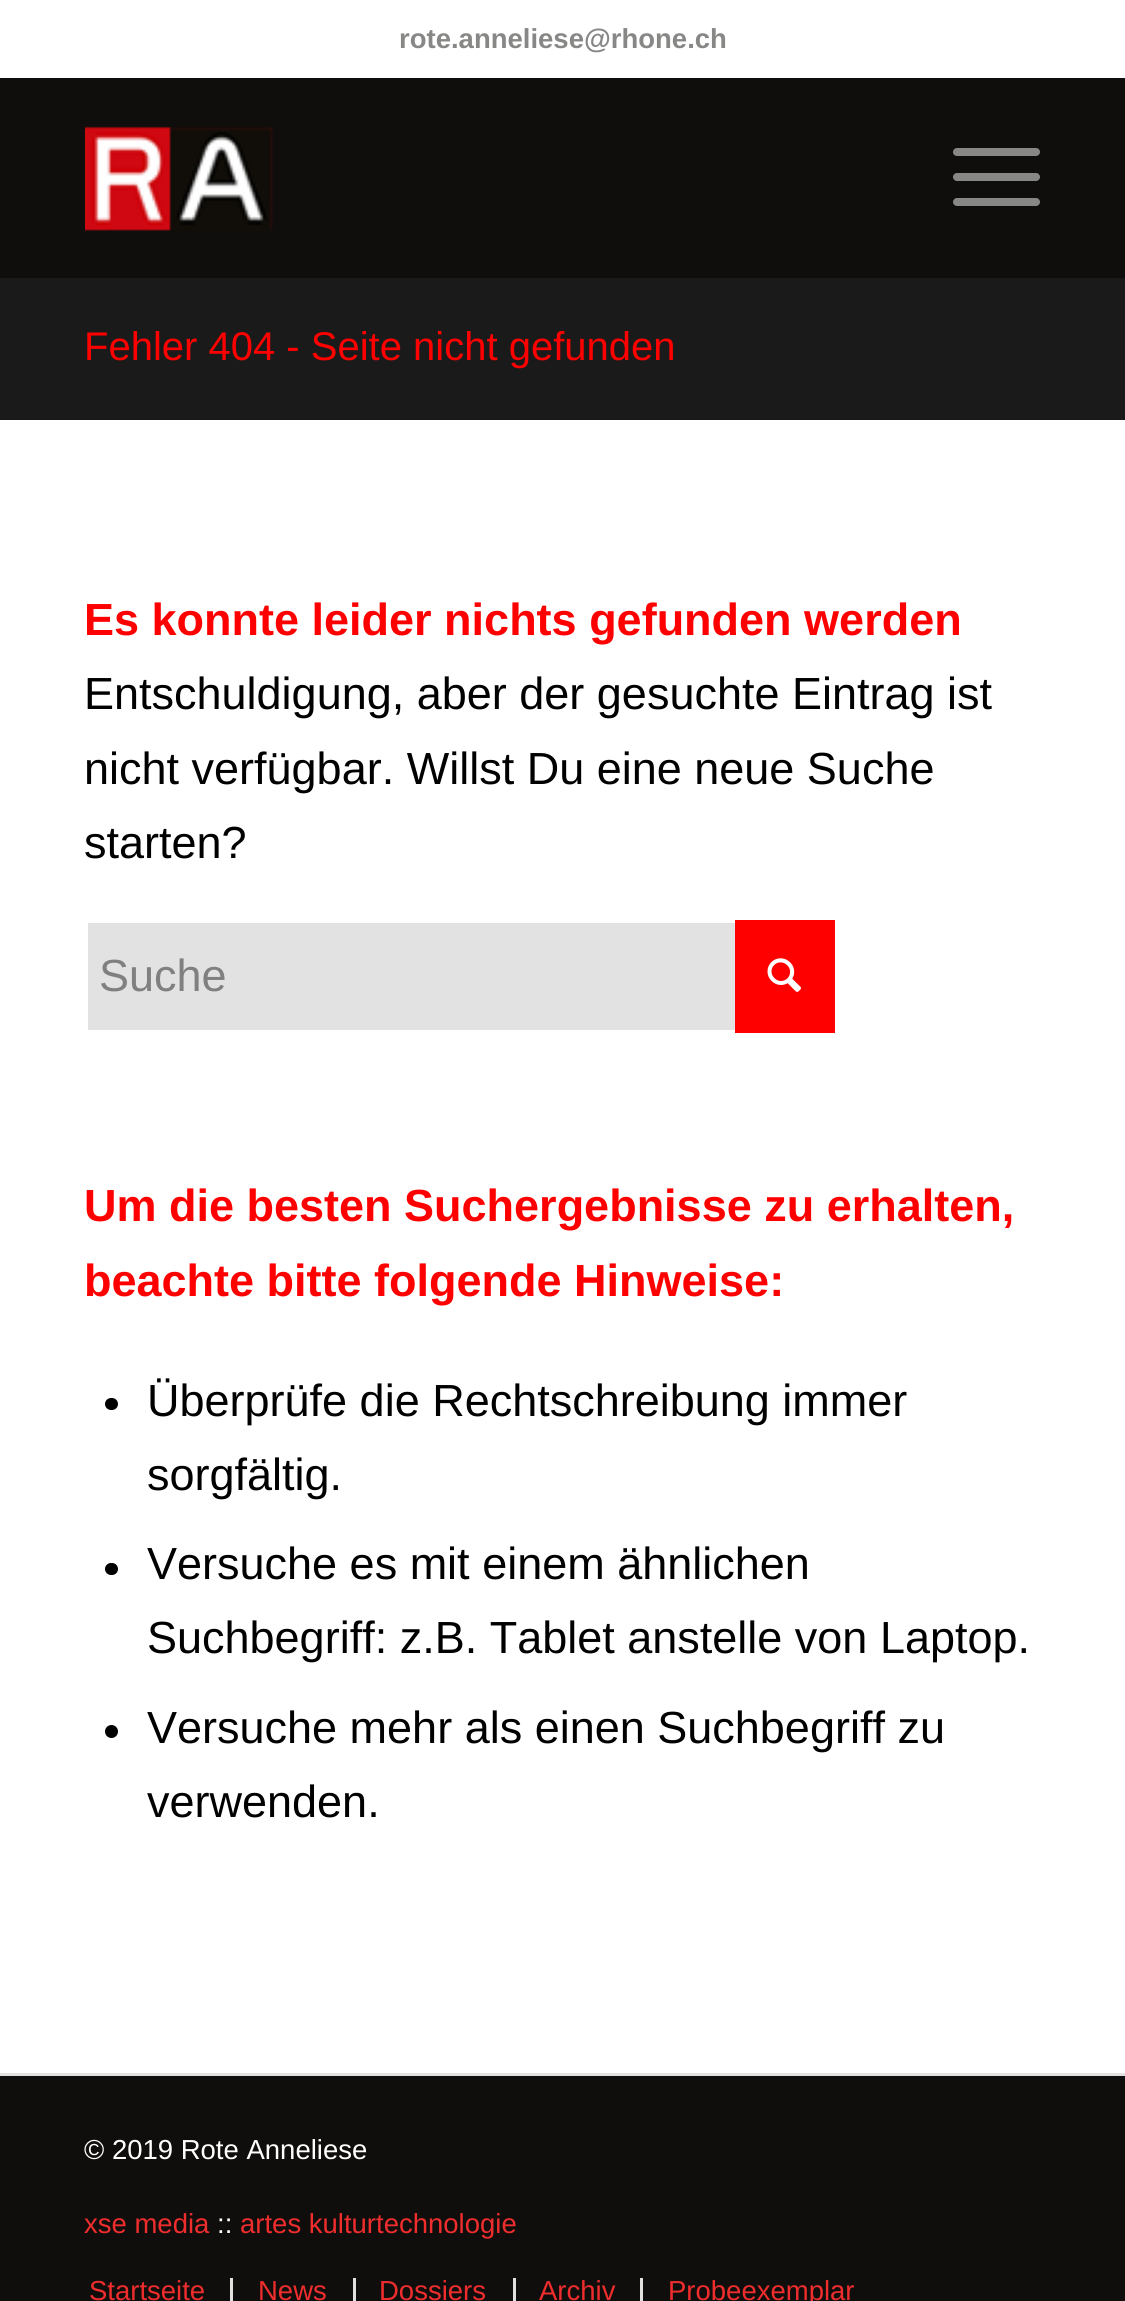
#include <cairo.h>
#include <math.h>
#include <stddef.h>


static void rgb(cairo_t *cr, int r, int g, int b)
{
	cairo_set_source_rgb(cr, r / 255.0, g / 255.0, b / 255.0);
}

static void face(cairo_t *cr, const char *family, double size, int italic, int bold)
{
	cairo_select_font_face(cr, family, italic ? CAIRO_FONT_SLANT_ITALIC : CAIRO_FONT_SLANT_NORMAL,
		bold ? CAIRO_FONT_WEIGHT_BOLD : CAIRO_FONT_WEIGHT_NORMAL);
	cairo_set_font_size(cr, size);
}

static void label(cairo_t *cr, double x, double y, const char *s)
{
	cairo_move_to(cr, x, y);
	cairo_show_text(cr, s);
}

static void rect(cairo_t *cr, double x, double y, double w, double h)
{
	cairo_rectangle(cr, x, y, w, h);
	cairo_fill(cr);
}

static void rrect(cairo_t *cr, double x, double y, double w, double h, double r)
{
	cairo_new_sub_path(cr);
	cairo_arc(cr, x + w - r, y + h - r, r, 0, M_PI / 2);
	cairo_arc(cr, x + r, y + h - r, r, M_PI / 2, M_PI);
	cairo_arc(cr, x + r, y + r, r, M_PI, 1.5 * M_PI);
	cairo_arc(cr, x + w - r, y + r, r, 1.5 * M_PI, 2 * M_PI);
	cairo_close_path(cr);
}

static void image(cairo_t *cr, const char *path, double x, double y, double w, double h)
{
	cairo_surface_t *image = cairo_image_surface_create_from_png(path);
	cairo_save(cr);
	cairo_set_source_surface(cr, image, x, y);
	cairo_rectangle(cr, x, y, w, h);
	cairo_fill(cr);
	cairo_restore(cr);
	cairo_surface_destroy(image);
}

static void draw(cairo_t *cr) {
	rgb(cr, 26, 26, 26);
	cairo_paint(cr);
	rgb(cr, 255, 255, 255);
	rect(cr, 0, 0, 1125, 78);
	face(cr, "Liberation Sans", 27.5, 0, 1);
	rgb(cr, 135, 135, 134);
	label(cr, 399, 48, "rote.anneliese@rhone.ch");
	rgb(cr, 15, 14, 12);
	rect(cr, 0, 78, 1125, 200);
	image(cr, "image0.png", 85, 126, 188, 105);
	rgb(cr, 135, 135, 134);
	rrect(cr, 953, 173, 87, 8, 4);
	cairo_fill(cr);
	rrect(cr, 953, 148, 87, 8, 4);
	cairo_fill(cr);
	rrect(cr, 953, 198, 87, 8, 4);
	cairo_fill(cr);
	face(cr, "Liberation Sans", 40, 0, 0);
	rgb(cr, 255, 0, 0);
	label(cr, 84, 360, "Fehler 404 - Seite nicht gefunden");
	rgb(cr, 255, 255, 255);
	rect(cr, 0, 420, 1125, 1653);
	face(cr, "Liberation Sans", 45, 0, 1);
	rgb(cr, 255, 0, 0);
	label(cr, 84, 635, "Es konnte leider nichts gefunden werden");
	face(cr, "Liberation Sans", 45, 0, 0);
	rgb(cr, 0, 0, 0);
	label(cr, 84, 709, "Entschuldigung, aber der gesuchte Eintrag ist");
	label(cr, 84, 784, "nicht verfügbar. Willst Du eine neue Suche");
	label(cr, 84, 858, "starten?");
	rgb(cr, 226, 226, 226);
	rect(cr, 88, 923, 647, 107);
	rgb(cr, 128, 128, 128);
	label(cr, 99, 991, "Suche");
	rgb(cr, 255, 0, 0);
	rect(cr, 735, 920, 100, 113);
	image(cr, "image1.png", 767, 958, 34, 34);
	face(cr, "Liberation Sans", 45, 0, 1);
	label(cr, 84, 1221, "Um die besten Suchergebnisse zu erhalten,");
	label(cr, 84, 1296, "beachte bitte folgende Hinweise:");
	rgb(cr, 0, 0, 0);
	rrect(cr, 105, 1398, 13, 12, 6);
	cairo_fill(cr);
	face(cr, "Liberation Sans", 45, 0, 0);
	label(cr, 147, 1416, "Überprüfe die Rechtschreibung immer");
	label(cr, 147, 1490, "sorgfältig.");
	rrect(cr, 105, 1563, 13, 12, 6);
	cairo_fill(cr);
	label(cr, 147, 1579, "Versuche es mit einem ähnlichen");
	label(cr, 147, 1653, "Suchbegriff: z.B. Tablet anstelle von Laptop.");
	cairo_new_path(cr);
	cairo_arc(cr, 111.5, 1731.5, 6.5, 0, 2 * M_PI);
	cairo_fill(cr);
	label(cr, 147, 1743, "Versuche mehr als einen Suchbegriff zu");
	label(cr, 147, 1817, "verwenden.");
	rgb(cr, 15, 14, 12);
	rect(cr, 0, 2076, 1125, 225);
	rgb(cr, 225, 225, 225);
	rect(cr, 0, 2073, 1125, 3);
	face(cr, "Liberation Sans", 27.5, 0, 0);
	rgb(cr, 255, 255, 255);
	label(cr, 84, 2159, "© 2019 Rote Anneliese");
	rgb(cr, 240, 45, 45);
	label(cr, 84, 2233, "xse media");
	rgb(cr, 255, 255, 255);
	label(cr, 217, 2233, "::");
	rgb(cr, 240, 45, 45);
	label(cr, 240, 2233, "artes kulturtechnologie");
	label(cr, 89, 2300, "Startseite");
	rgb(cr, 225, 225, 225);
	rect(cr, 230, 2278, 3, 23);
	rgb(cr, 240, 45, 45);
	label(cr, 258, 2300, "News");
	rgb(cr, 225, 225, 225);
	rect(cr, 353, 2278, 3, 23);
	rgb(cr, 240, 45, 45);
	label(cr, 379, 2300, "Dossiers");
	rgb(cr, 225, 225, 225);
	rect(cr, 513, 2278, 3, 23);
	rgb(cr, 240, 45, 45);
	label(cr, 539, 2300, "Archiv");
	rgb(cr, 225, 225, 225);
	rect(cr, 640, 2278, 3, 23);
	rgb(cr, 240, 45, 45);
	label(cr, 668, 2300, "Probeexemplar");
}

int main(void) {
	cairo_surface_t *surface = cairo_image_surface_create(CAIRO_FORMAT_RGB24, 1125, 2301);
	cairo_t *cr = cairo_create(surface);
	cairo_font_options_t *options = cairo_font_options_create();
	cairo_font_options_set_hint_metrics(options, CAIRO_HINT_METRICS_OFF);
	cairo_font_options_set_hint_style(options, CAIRO_HINT_STYLE_NONE);
	cairo_set_font_options(cr, options);
	cairo_set_miter_limit(cr, 4);
	draw(cr);
	cairo_surface_write_to_png(surface, "render.png");
	cairo_font_options_destroy(options);
	cairo_destroy(cr);
	cairo_surface_destroy(surface);
	return 0;
}
